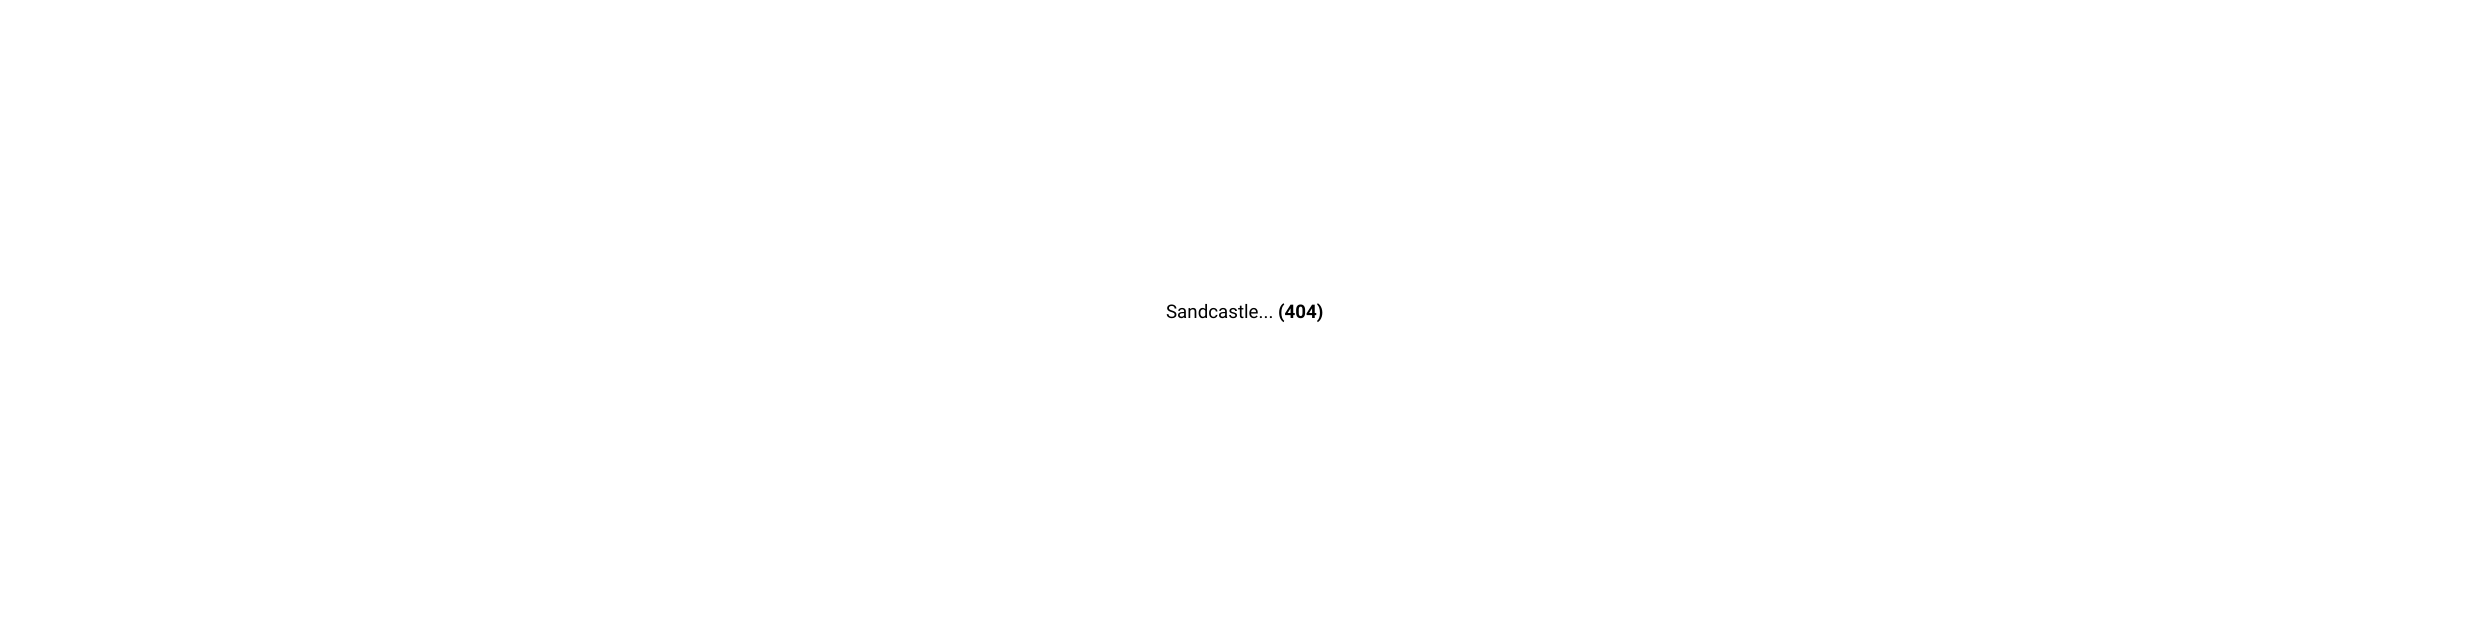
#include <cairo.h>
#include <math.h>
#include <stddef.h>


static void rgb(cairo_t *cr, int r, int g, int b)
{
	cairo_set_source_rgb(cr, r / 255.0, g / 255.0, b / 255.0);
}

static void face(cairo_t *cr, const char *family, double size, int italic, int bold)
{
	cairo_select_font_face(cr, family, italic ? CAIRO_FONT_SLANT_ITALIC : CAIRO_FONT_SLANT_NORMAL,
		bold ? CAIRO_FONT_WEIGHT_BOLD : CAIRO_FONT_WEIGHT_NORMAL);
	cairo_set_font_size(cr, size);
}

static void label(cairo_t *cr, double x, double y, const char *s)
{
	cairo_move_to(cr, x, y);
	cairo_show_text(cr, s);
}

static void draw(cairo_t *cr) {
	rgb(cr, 255, 255, 255);
	cairo_paint(cr);
	face(cr, "Roboto", 18.75, 0, 0);
	rgb(cr, 0, 0, 0);
	label(cr, 1166, 318, "Sandcastle...");
	face(cr, "Roboto", 18.75, 0, 1);
	label(cr, 1278, 318, "(404)");
}

int main(void) {
	cairo_surface_t *surface = cairo_image_surface_create(CAIRO_FORMAT_RGB24, 2489, 644);
	cairo_t *cr = cairo_create(surface);
	cairo_font_options_t *options = cairo_font_options_create();
	cairo_font_options_set_hint_metrics(options, CAIRO_HINT_METRICS_OFF);
	cairo_font_options_set_hint_style(options, CAIRO_HINT_STYLE_NONE);
	cairo_set_font_options(cr, options);
	cairo_set_miter_limit(cr, 4);
	draw(cr);
	cairo_surface_write_to_png(surface, "render.png");
	cairo_font_options_destroy(options);
	cairo_destroy(cr);
	cairo_surface_destroy(surface);
	return 0;
}
